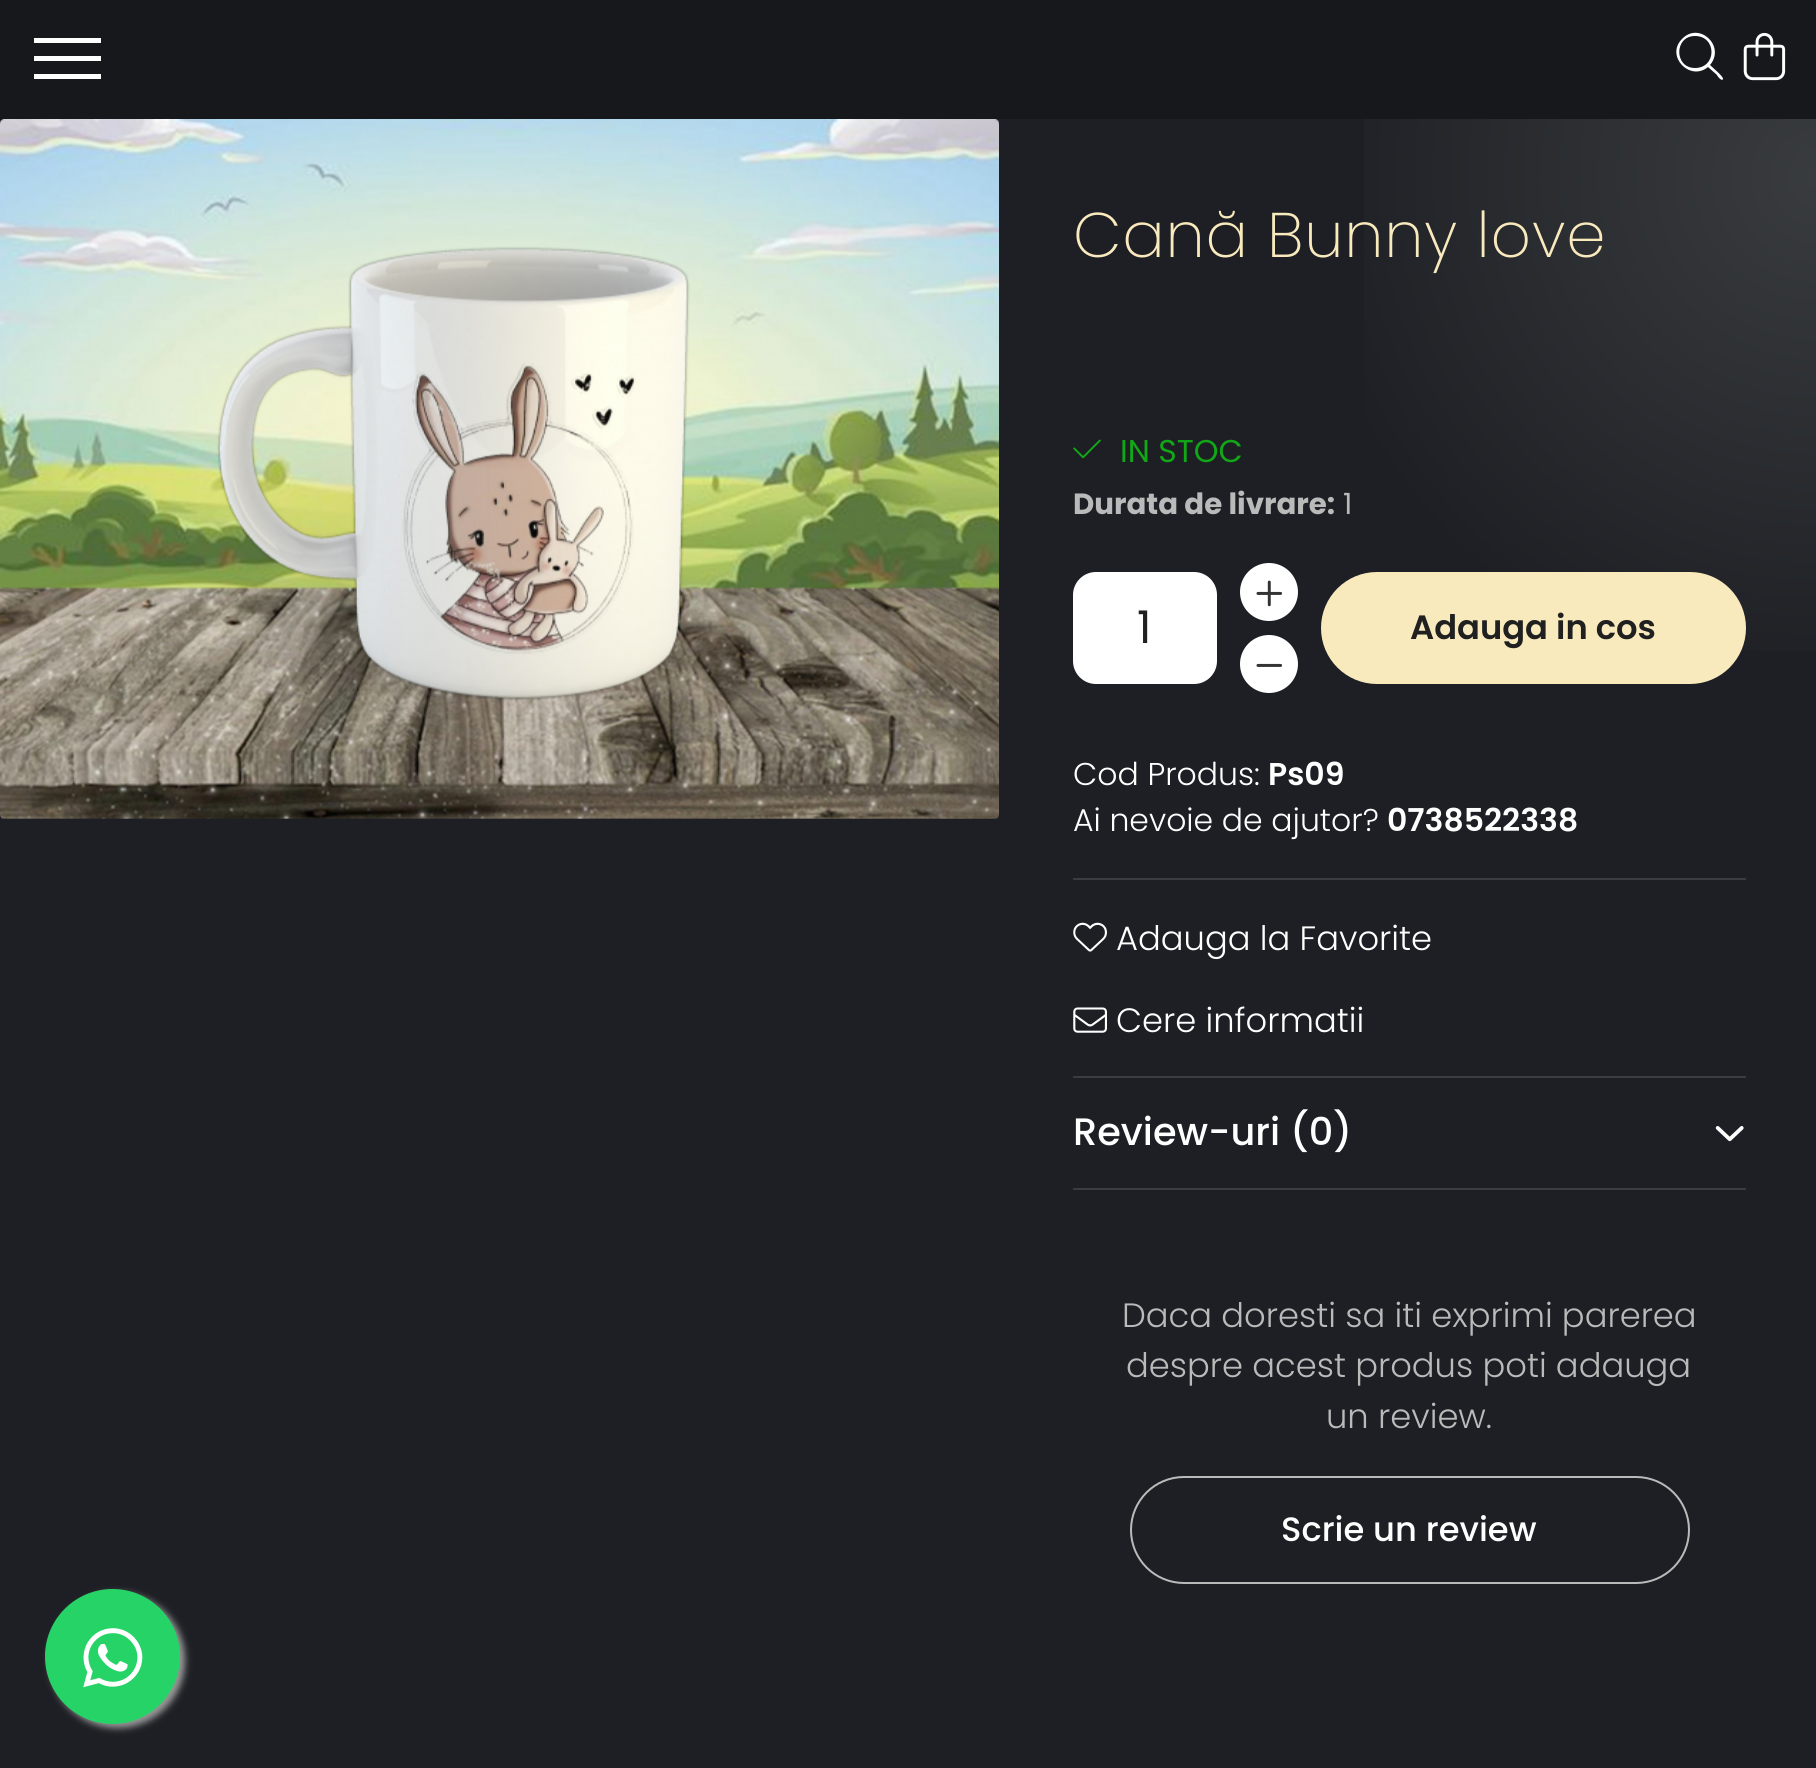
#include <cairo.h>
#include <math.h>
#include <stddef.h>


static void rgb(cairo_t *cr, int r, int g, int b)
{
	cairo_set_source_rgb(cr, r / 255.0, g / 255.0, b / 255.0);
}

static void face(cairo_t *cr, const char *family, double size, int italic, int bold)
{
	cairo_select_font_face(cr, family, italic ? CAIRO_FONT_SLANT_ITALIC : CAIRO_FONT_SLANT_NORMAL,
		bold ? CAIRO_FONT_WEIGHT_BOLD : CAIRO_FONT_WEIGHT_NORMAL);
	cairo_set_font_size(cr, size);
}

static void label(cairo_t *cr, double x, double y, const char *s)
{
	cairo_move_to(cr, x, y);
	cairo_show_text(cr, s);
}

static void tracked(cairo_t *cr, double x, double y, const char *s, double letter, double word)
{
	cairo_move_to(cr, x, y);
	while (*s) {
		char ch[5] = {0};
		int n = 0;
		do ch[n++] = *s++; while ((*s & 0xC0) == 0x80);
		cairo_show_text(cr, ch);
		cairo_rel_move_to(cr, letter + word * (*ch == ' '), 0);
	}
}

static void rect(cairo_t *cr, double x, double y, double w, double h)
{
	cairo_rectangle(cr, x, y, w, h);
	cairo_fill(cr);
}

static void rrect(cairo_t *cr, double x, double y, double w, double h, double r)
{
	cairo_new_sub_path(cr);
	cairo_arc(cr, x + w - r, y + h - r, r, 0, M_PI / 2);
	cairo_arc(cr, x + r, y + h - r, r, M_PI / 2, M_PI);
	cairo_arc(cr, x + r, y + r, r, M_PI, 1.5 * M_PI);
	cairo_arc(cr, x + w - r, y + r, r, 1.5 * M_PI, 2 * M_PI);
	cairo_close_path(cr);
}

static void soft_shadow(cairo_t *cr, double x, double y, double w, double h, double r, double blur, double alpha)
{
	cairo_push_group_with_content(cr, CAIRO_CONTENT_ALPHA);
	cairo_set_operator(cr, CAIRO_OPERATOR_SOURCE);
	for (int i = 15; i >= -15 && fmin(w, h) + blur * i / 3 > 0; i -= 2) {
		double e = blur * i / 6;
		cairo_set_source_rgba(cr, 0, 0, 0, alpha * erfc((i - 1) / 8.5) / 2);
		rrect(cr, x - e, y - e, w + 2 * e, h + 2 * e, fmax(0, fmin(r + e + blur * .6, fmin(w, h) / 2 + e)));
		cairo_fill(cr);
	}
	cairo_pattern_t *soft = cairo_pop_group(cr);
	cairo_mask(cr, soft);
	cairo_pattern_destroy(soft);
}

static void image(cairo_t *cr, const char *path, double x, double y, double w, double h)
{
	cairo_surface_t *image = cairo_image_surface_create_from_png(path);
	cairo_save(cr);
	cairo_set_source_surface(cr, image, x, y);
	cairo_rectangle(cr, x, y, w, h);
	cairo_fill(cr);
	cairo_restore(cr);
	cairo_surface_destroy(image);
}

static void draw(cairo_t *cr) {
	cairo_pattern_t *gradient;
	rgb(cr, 29, 31, 36);
	cairo_paint(cr);
	rgb(cr, 22, 24, 28);
	rect(cr, 0, 0, 1816, 119);
	rgb(cr, 255, 255, 255);
	rect(cr, 34, 56, 67, 5);
	rect(cr, 34, 38, 67, 5);
	rect(cr, 34, 74, 67, 5);
	cairo_new_path(cr);
	cairo_move_to(cr, 1710, 65);
	cairo_curve_to(cr, 1726, 46, 1699, 21, 1682, 39);
	cairo_curve_to(cr, 1665, 56, 1690, 82, 1708, 67);
	cairo_line_to(cr, 1717, 75);
	cairo_curve_to(cr, 1717, 76, 1722, 82, 1723, 79);
	cairo_curve_to(cr, 1724, 77, 1712, 67, 1710, 65);
	cairo_close_path(cr);
	cairo_move_to(cr, 1695, 68);
	cairo_curve_to(cr, 1674, 68, 1674, 36, 1695, 36);
	cairo_curve_to(cr, 1717, 36, 1717, 68, 1695, 68);
	cairo_close_path(cr);
	cairo_fill(cr);
	image(cr, "image0.png", 1743, 32, 43, 49);
	gradient = cairo_pattern_create_radial(0, 1.1, 0, 0, 1.1, 1902);
	cairo_pattern_add_color_stop_rgba(gradient, 0, 0.086, 0.094, 0.11, 1);
	cairo_pattern_add_color_stop_rgba(gradient, 0.4, 0.114, 0.122, 0.141, 1);
	cairo_set_source(cr, gradient);
	cairo_pattern_destroy(gradient);
	rect(cr, 0, 119, 505, 402);
	gradient = cairo_pattern_create_radial(1818, 177, 0, 1818, 177, 1728);
	cairo_pattern_add_color_stop_rgba(gradient, 0, 0.224, 0.235, 0.247, 1);
	cairo_pattern_add_color_stop_rgba(gradient, 0.3, 0.114, 0.122, 0.141, 1);
	cairo_set_source(cr, gradient);
	cairo_pattern_destroy(gradient);
	rect(cr, 1364, 119, 452, 532);
	image(cr, "image1.png", 0, 119, 999, 700);
	face(cr, "Poppins ExtraLight", 63, 0, 0);
	rgb(cr, 249, 234, 190);
	tracked(cr, 1073, 257, "Cană Bunny love", 0.75, 0);
	image(cr, "image2.png", 1073, 439, 28, 20);
	face(cr, "Poppins", 31.5, 0, 0);
	rgb(cr, 17, 167, 23);
	label(cr, 1120, 462, "IN STOC");
	face(cr, "Poppins", 29.25, 0, 1);
	rgb(cr, 186, 186, 186);
	label(cr, 1073, 514, "Durata de livrare:");
	face(cr, "Poppins", 29.25, 0, 0);
	label(cr, 1343, 514, "1");
	rgb(cr, 255, 255, 255);
	cairo_new_path(cr);
	cairo_arc(cr, 1269, 592, 29, 0, 2 * M_PI);
	cairo_fill(cr);
	image(cr, "image3.png", 1256, 580, 27, 27);
	rrect(cr, 1073, 572, 144, 112, 23);
	cairo_fill(cr);
	face(cr, "Poppins", 45, 0, 0);
	rgb(cr, 31, 32, 31);
	label(cr, 1137, 643, "1");
	rgb(cr, 255, 255, 255);
	cairo_new_path(cr);
	cairo_arc(cr, 1269, 664, 29, 0, 2 * M_PI);
	cairo_fill(cr);
	image(cr, "image4.png", 1256, 663, 27, 4);
	rgb(cr, 249, 234, 190);
	rrect(cr, 1321, 572, 425, 112, 56);
	cairo_fill(cr);
	face(cr, "Poppins SemiBold", 33.75, 0, 0);
	rgb(cr, 31, 32, 31);
	label(cr, 1410, 639, "Adauga in cos");
	face(cr, "Poppins Light", 31.5, 0, 0);
	rgb(cr, 255, 255, 255);
	label(cr, 1073, 785, "Cod Produs:");
	face(cr, "Poppins SemiBold", 31.5, 0, 0);
	label(cr, 1268, 785, "Ps09");
	face(cr, "Poppins Light", 31.5, 0, 0);
	label(cr, 1073, 831, "Ai nevoie de ajutor?");
	face(cr, "Poppins SemiBold", 31.5, 0, 0);
	label(cr, 1387, 831, "0738522338");
	rgb(cr, 57, 60, 64);
	rect(cr, 1073, 878, 673, 2);
	image(cr, "image5.png", 1073, 922, 34, 30);
	face(cr, "Poppins Light", 33.75, 0, 0);
	rgb(cr, 255, 255, 255);
	label(cr, 1116, 950, "Adauga la Favorite");
	image(cr, "image6.png", 1073, 1007, 34, 26);
	label(cr, 1116, 1032, "Cere informatii");
	rgb(cr, 57, 60, 64);
	rect(cr, 1073, 1076, 673, 2);
	rect(cr, 1073, 1188, 673, 2);
	face(cr, "Poppins Medium", 38.25, 0, 0);
	rgb(cr, 255, 255, 255);
	label(cr, 1073, 1145, "Review-uri (0)");
	image(cr, "image7.png", 1715, 1126, 29, 16);
	face(cr, "Poppins Light", 33.75, 0, 0);
	rgb(cr, 186, 186, 186);
	label(cr, 1122, 1327, "Daca doresti sa iti exprimi parerea");
	label(cr, 1126, 1377, "despre acest produs poti adauga");
	label(cr, 1326, 1428, "un review.");
	rrect(cr, 1131, 1477, 558, 106, 53);
	cairo_stroke(cr);
	face(cr, "Poppins Medium", 33.75, 0, 0);
	rgb(cr, 255, 255, 255);
	label(cr, 1281, 1541, "Scrie un review");
	rgb(cr, 153, 153, 153);
	soft_shadow(cr, 50, 1593, 135, 135, 67.5, 3.5, 1);
	rgb(cr, 37, 211, 102);
	cairo_arc(cr, 112.5, 1656.5, 67.5, 0, 2 * M_PI);
	cairo_fill(cr);
	image(cr, "image8.png", 83, 1628, 60, 60);
}

int main(void) {
	cairo_surface_t *surface = cairo_image_surface_create(CAIRO_FORMAT_RGB24, 1816, 1768);
	cairo_t *cr = cairo_create(surface);
	cairo_font_options_t *options = cairo_font_options_create();
	cairo_font_options_set_hint_metrics(options, CAIRO_HINT_METRICS_OFF);
	cairo_font_options_set_hint_style(options, CAIRO_HINT_STYLE_NONE);
	cairo_set_font_options(cr, options);
	cairo_set_miter_limit(cr, 4);
	draw(cr);
	cairo_surface_write_to_png(surface, "render.png");
	cairo_font_options_destroy(options);
	cairo_destroy(cr);
	cairo_surface_destroy(surface);
	return 0;
}
